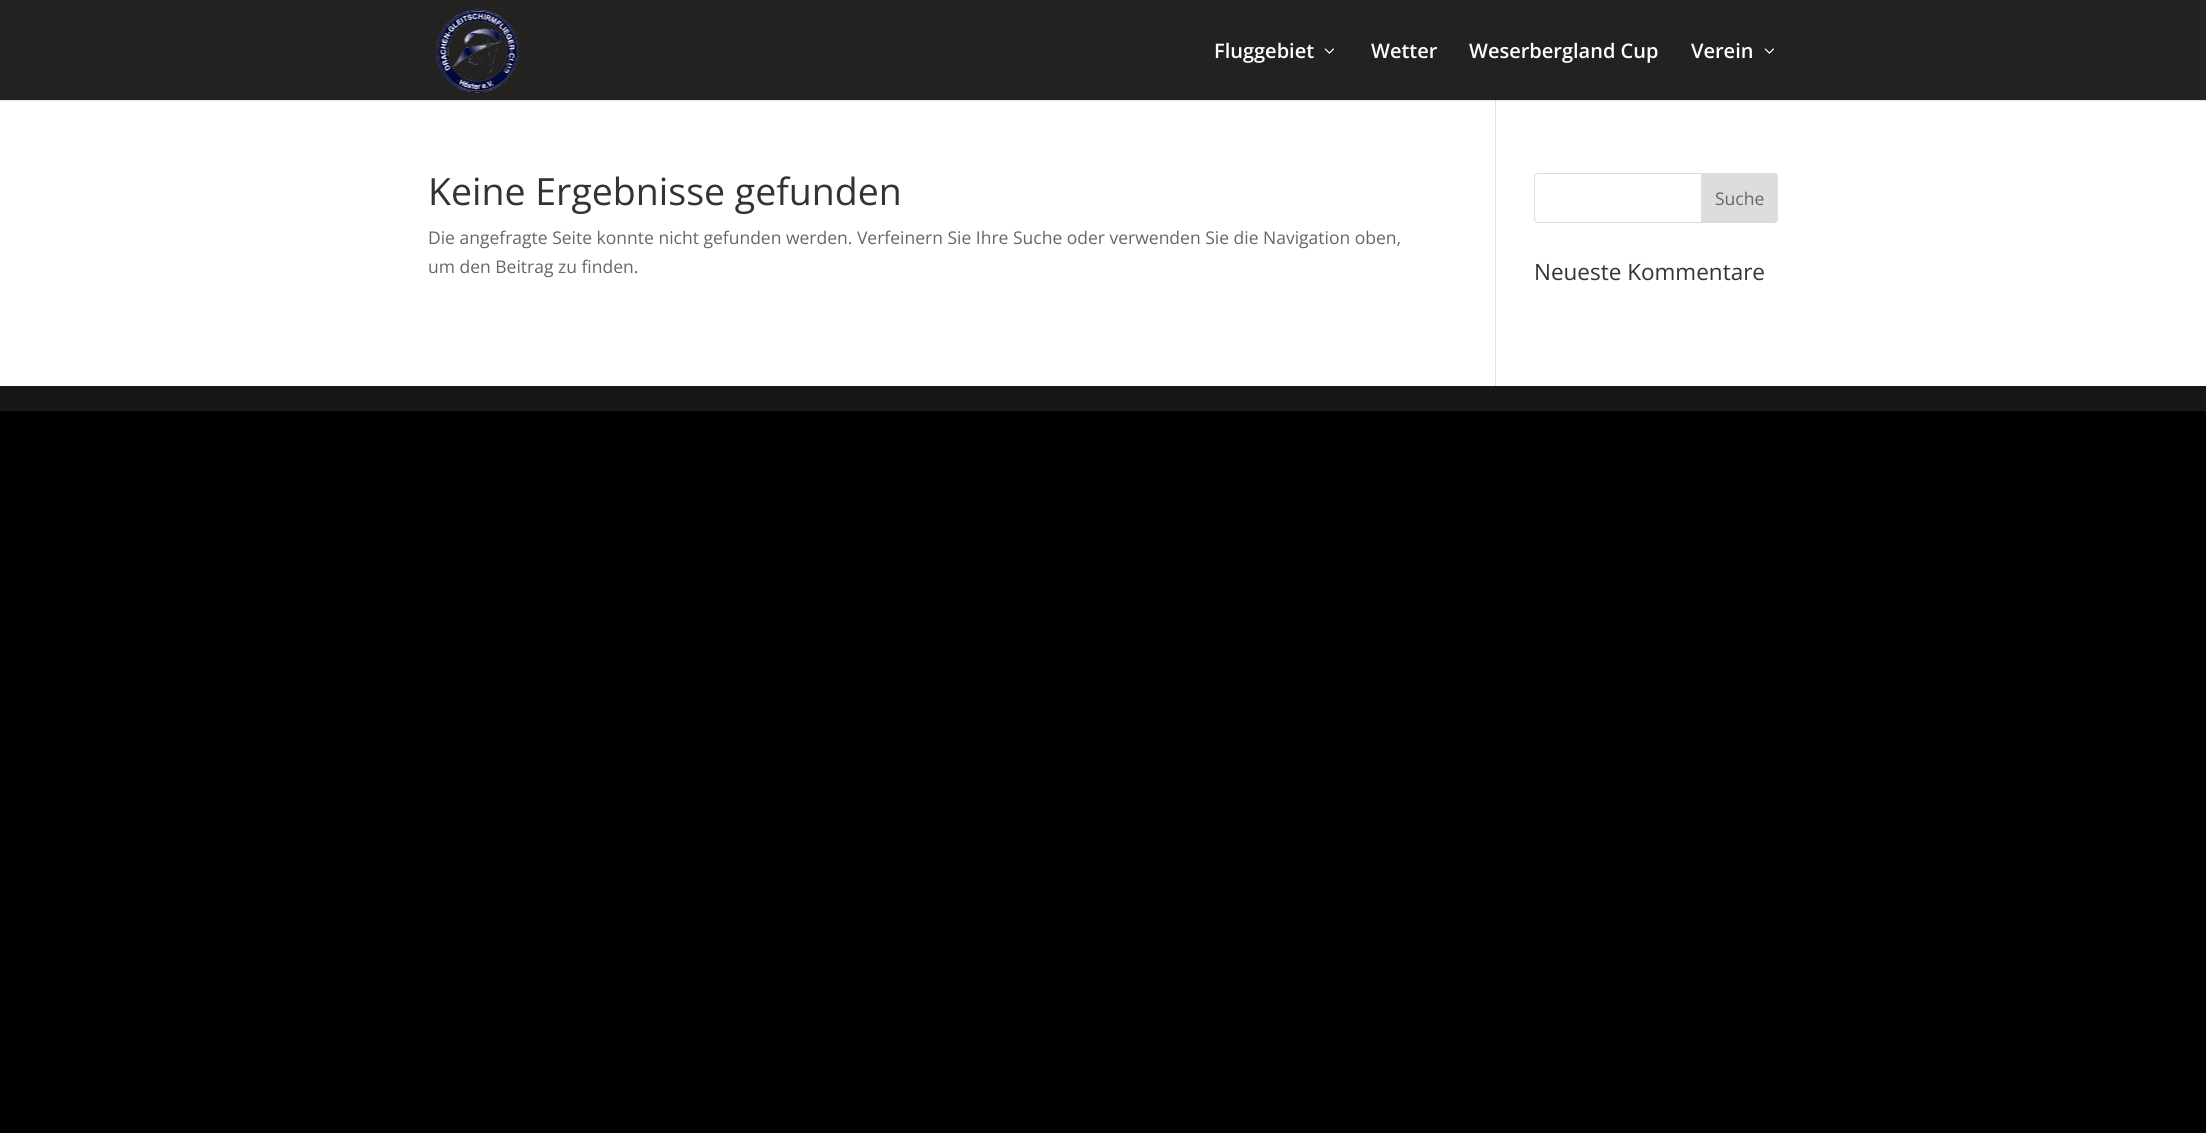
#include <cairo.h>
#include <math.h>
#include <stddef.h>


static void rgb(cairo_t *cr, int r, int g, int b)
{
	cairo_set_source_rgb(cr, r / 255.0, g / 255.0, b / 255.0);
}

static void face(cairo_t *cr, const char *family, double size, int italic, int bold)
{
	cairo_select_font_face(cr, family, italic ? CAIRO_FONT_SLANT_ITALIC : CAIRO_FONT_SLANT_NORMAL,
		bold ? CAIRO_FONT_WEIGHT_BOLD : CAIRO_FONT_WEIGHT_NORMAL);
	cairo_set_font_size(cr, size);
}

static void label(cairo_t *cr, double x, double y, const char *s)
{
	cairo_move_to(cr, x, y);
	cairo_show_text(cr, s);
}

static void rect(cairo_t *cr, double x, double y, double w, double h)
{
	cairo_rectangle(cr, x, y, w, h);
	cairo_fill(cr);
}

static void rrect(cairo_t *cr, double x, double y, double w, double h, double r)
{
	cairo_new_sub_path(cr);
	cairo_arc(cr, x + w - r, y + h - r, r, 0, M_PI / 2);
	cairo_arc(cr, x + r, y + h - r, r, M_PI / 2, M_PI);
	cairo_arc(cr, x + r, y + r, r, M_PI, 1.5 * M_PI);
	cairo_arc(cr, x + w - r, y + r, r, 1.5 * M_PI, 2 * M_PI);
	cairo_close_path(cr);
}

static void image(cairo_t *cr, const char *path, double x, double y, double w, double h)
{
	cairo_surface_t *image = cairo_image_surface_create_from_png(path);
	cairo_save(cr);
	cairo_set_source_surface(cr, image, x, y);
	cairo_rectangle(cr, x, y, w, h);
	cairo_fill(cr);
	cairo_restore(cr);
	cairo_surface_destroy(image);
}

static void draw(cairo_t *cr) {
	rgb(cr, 0, 0, 0);
	cairo_paint(cr);
	rgb(cr, 35, 34, 32);
	rect(cr, 0, 0, 2206, 100);
	image(cr, "image0.png", 436, 9, 83, 84);
	face(cr, "Open Sans SemiBold", 20, 0, 0);
	rgb(cr, 255, 255, 255);
	label(cr, 1214, 58, "Fluggebiet");
	image(cr, "image1.png", 1324, 48, 10, 6);
	label(cr, 1371, 58, "Wetter");
	label(cr, 1469, 58, "Weserbergland Cup");
	label(cr, 1691, 58, "Verein");
	image(cr, "image1.png", 1764, 48, 10, 6);
	rect(cr, 0, 101, 2206, 285);
	rgb(cr, 230, 230, 230);
	rect(cr, 0, 100, 2206, 1);
	rgb(cr, 226, 226, 226);
	rect(cr, 1495, 100, 1, 286);
	rgb(cr, 203, 203, 203);
	rect(cr, 1495, 100, 1, 1);
	face(cr, "Open Sans", 37.5, 0, 0);
	rgb(cr, 51, 51, 51);
	label(cr, 428, 205, "Keine Ergebnisse gefunden");
	face(cr, "Open Sans", 17.5, 0, 0);
	rgb(cr, 102, 102, 102);
	label(cr, 428, 244, "Die angefragte Seite konnte nicht gefunden werden. Verfeinern Sie Ihre Suche oder verwenden Sie die Navigation oben,");
	label(cr, 428, 273, "um den Beitrag zu finden.");
	rrect(cr, 1534.5, 173.5, 243, 49, 3.5);
	rgb(cr, 221, 221, 221);
	cairo_set_line_width(cr, 1);
	cairo_stroke(cr);
	cairo_new_path(cr);
	cairo_move_to(cr, 1701.5, 173.5);
	cairo_line_to(cr, 1774, 173.5);
	cairo_curve_to(cr, 1776, 173.5, 1777.5, 175, 1777.5, 177);
	cairo_line_to(cr, 1777.5, 219);
	cairo_curve_to(cr, 1777.5, 221, 1776, 222.5, 1774, 222.5);
	cairo_line_to(cr, 1701.5, 222.5);
	cairo_close_path(cr);
	cairo_fill_preserve(cr);
	cairo_stroke(cr);
	rgb(cr, 102, 102, 102);
	label(cr, 1715, 205, "Suche");
	face(cr, "Open Sans", 22.5, 0, 0);
	rgb(cr, 51, 51, 51);
	label(cr, 1534, 280, "Neueste Kommentare");
	rgb(cr, 23, 23, 23);
	rect(cr, 0, 386, 2206, 25);
}

int main(void) {
	cairo_surface_t *surface = cairo_image_surface_create(CAIRO_FORMAT_RGB24, 2206, 1133);
	cairo_t *cr = cairo_create(surface);
	cairo_font_options_t *options = cairo_font_options_create();
	cairo_font_options_set_hint_metrics(options, CAIRO_HINT_METRICS_OFF);
	cairo_font_options_set_hint_style(options, CAIRO_HINT_STYLE_NONE);
	cairo_set_font_options(cr, options);
	cairo_set_miter_limit(cr, 4);
	draw(cr);
	cairo_surface_write_to_png(surface, "render.png");
	cairo_font_options_destroy(options);
	cairo_destroy(cr);
	cairo_surface_destroy(surface);
	return 0;
}
